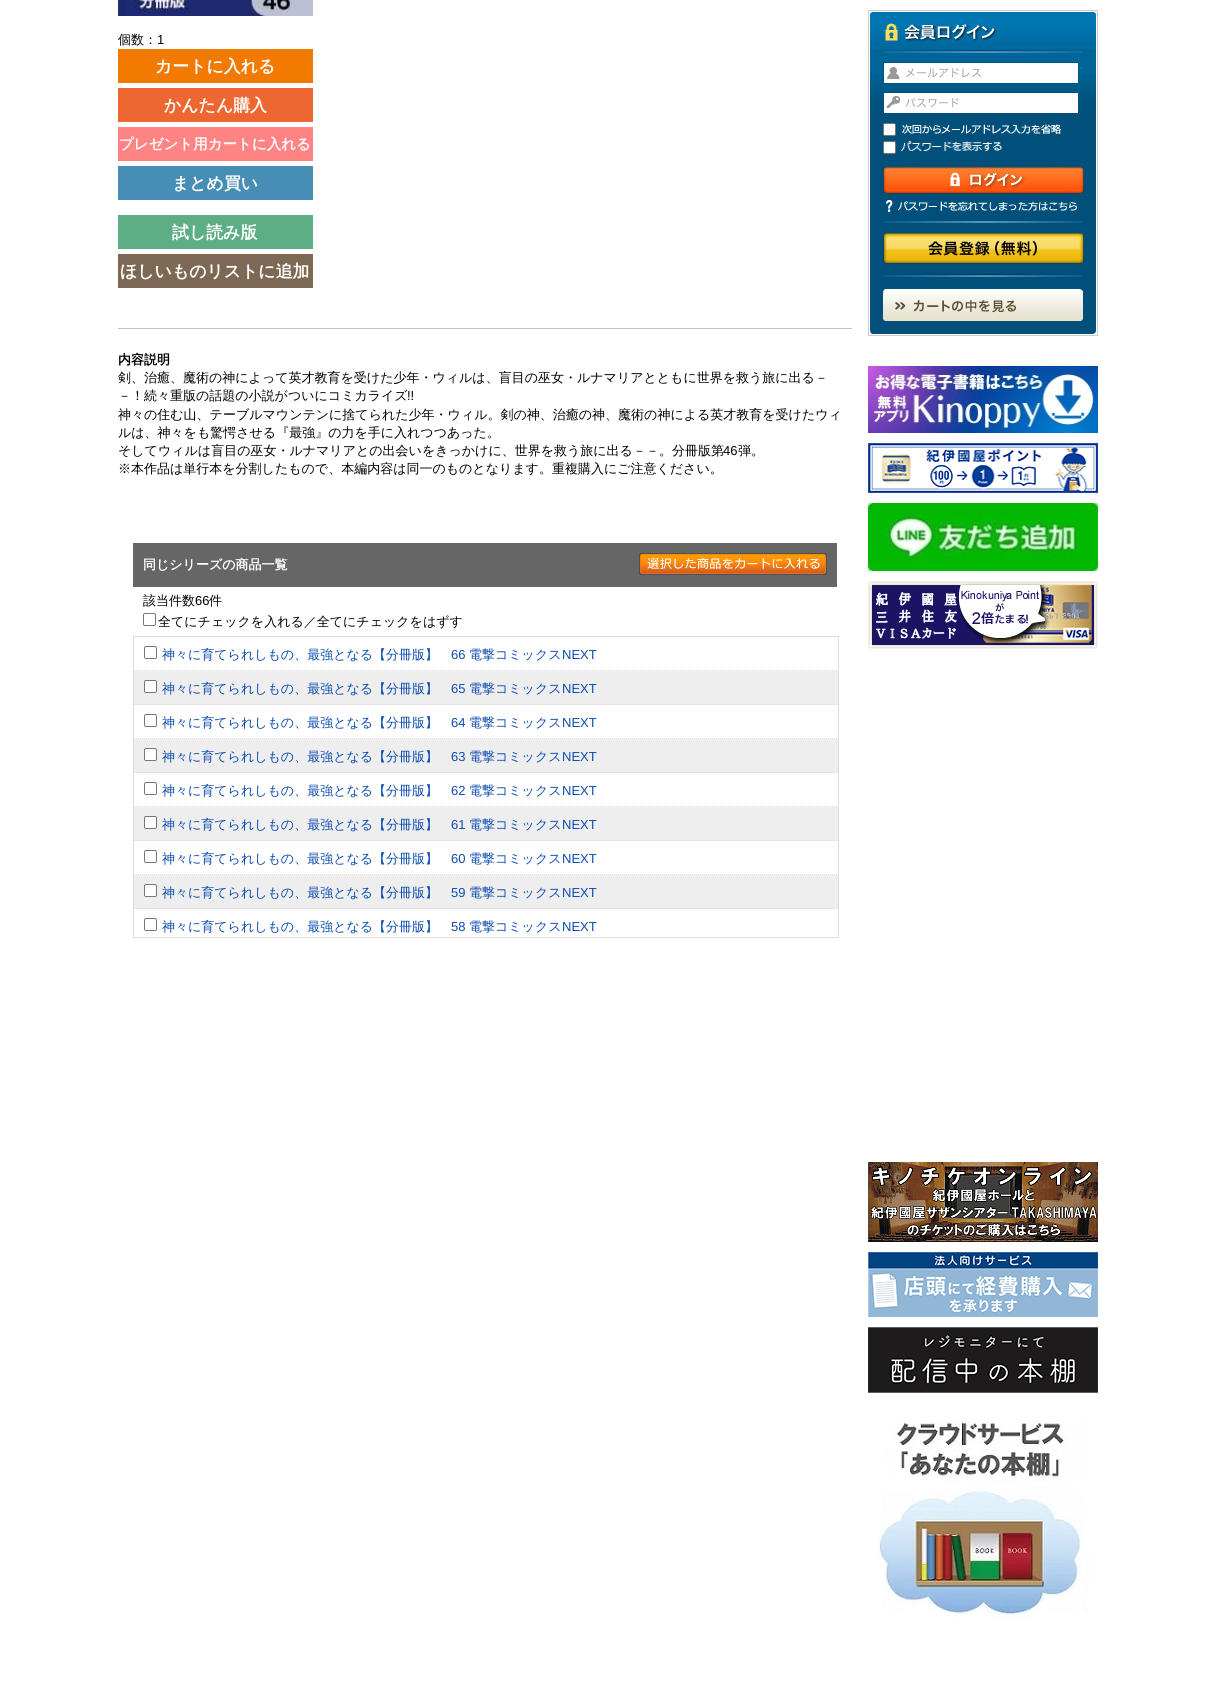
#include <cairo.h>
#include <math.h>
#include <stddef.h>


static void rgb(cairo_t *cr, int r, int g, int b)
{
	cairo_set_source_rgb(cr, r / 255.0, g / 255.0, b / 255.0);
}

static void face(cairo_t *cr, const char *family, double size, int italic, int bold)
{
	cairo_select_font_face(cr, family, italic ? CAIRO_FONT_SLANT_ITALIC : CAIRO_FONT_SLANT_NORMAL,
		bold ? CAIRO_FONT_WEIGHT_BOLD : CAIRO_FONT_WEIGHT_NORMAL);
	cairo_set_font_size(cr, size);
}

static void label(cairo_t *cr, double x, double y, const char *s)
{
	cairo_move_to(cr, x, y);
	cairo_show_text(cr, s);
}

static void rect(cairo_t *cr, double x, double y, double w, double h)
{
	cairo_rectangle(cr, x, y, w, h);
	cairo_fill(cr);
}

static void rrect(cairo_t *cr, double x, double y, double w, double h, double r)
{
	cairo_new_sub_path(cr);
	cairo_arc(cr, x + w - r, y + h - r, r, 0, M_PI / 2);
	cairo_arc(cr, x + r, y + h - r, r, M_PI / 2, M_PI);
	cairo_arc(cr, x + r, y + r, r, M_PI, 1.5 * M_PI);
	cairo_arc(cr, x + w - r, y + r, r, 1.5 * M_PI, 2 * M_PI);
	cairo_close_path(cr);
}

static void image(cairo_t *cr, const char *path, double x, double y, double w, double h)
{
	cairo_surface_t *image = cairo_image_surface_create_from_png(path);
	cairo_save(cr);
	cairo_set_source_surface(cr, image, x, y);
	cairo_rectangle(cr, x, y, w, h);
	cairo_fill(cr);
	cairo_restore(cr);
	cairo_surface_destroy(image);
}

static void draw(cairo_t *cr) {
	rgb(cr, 255, 255, 255);
	cairo_paint(cr);
	image(cr, "image0.png", 118, 0, 195, 16);
	face(cr, "WenQuanYi Zen Hei Medium", 13, 0, 0);
	rgb(cr, 0, 0, 0);
	label(cr, 118, 44, "個数：");
	face(cr, "Liberation Sans", 13, 0, 0);
	label(cr, 157, 44, "1");
	rgb(cr, 242, 122, 0);
	rect(cr, 118, 49, 195, 34);
	face(cr, "WenQuanYi Zen Hei", 16.9, 0, 1);
	rgb(cr, 255, 255, 255);
	label(cr, 155, 72, "カートに入れる");
	rgb(cr, 238, 103, 49);
	rect(cr, 118, 88, 195, 34);
	rgb(cr, 255, 255, 255);
	label(cr, 164, 111, "かんたん購入");
	rgb(cr, 255, 132, 131);
	rect(cr, 118, 127, 195, 34);
	face(cr, "WenQuanYi Zen Hei", 14.5, 0, 1);
	rgb(cr, 255, 255, 255);
	label(cr, 119, 149, "プレゼント用カートに入れる");
	rgb(cr, 71, 142, 180);
	rect(cr, 118, 166, 195, 34);
	face(cr, "WenQuanYi Zen Hei", 16.9, 0, 1);
	rgb(cr, 255, 255, 255);
	label(cr, 172, 189, "まとめ買い");
	rgb(cr, 93, 174, 133);
	rect(cr, 118, 215, 195, 34);
	rgb(cr, 255, 255, 255);
	label(cr, 172, 238, "試し読み版");
	rgb(cr, 125, 104, 84);
	rect(cr, 118, 254, 195, 34);
	rgb(cr, 255, 255, 255);
	label(cr, 120, 277, "ほしいものリストに追加");
	rgb(cr, 194, 194, 194);
	rect(cr, 118, 328, 734, 1);
	face(cr, "WenQuanYi Zen Hei", 13, 0, 1);
	rgb(cr, 0, 0, 0);
	label(cr, 118, 364, "内容説明");
	face(cr, "WenQuanYi Zen Hei Medium", 13, 0, 0);
	label(cr, 118, 382, "剣、治癒、魔術の神によって英才教育を受けた少年・ウィルは、盲目の巫女・ルナマリアとともに世界を救う旅に出る－");
	label(cr, 118, 400, "－！続々重版の話題の小説がついにコミカライズ");
	face(cr, "Liberation Sans", 13, 0, 0);
	label(cr, 407, 400, "!!");
	face(cr, "WenQuanYi Zen Hei Medium", 13, 0, 0);
	label(cr, 118, 419, "神々の住む山、テーブルマウンテンに捨てられた少年・ウィル。剣の神、治癒の神、魔術の神による英才教育を受けたウィ");
	label(cr, 118, 437, "ルは、神々をも驚愕させる『最強』の力を手に入れつつあった。");
	label(cr, 118, 455, "そしてウィルは盲目の巫女・ルナマリアとの出会いをきっかけに、世界を救う旅に出る－－。分冊版第");
	face(cr, "Liberation Sans", 13, 0, 0);
	label(cr, 723, 455, "46");
	face(cr, "WenQuanYi Zen Hei Medium", 13, 0, 0);
	label(cr, 738, 455, "弾。");
	label(cr, 118, 473, "※本作品は単行本を分割したもので、本編内容は同一のものとなります。重複購入にご注意ください。");
	rgb(cr, 102, 102, 102);
	rect(cr, 133, 543, 704, 44);
	face(cr, "WenQuanYi Zen Hei", 13, 0, 1);
	rgb(cr, 255, 255, 255);
	label(cr, 143, 569, "同じシリーズの商品一覧");
	image(cr, "image1.png", 639, 553, 188, 22);
	face(cr, "WenQuanYi Zen Hei Medium", 13, 0, 0);
	rgb(cr, 0, 0, 0);
	label(cr, 143, 605, "該当件数");
	face(cr, "Liberation Sans", 13, 0, 0);
	label(cr, 195, 605, "66");
	face(cr, "WenQuanYi Zen Hei Medium", 13, 0, 0);
	label(cr, 209, 605, "件");
	rrect(cr, 143.5, 613.5, 12, 12, 1.5);
	rgb(cr, 118, 118, 118);
	cairo_set_line_width(cr, 1);
	cairo_stroke(cr);
	rgb(cr, 0, 0, 0);
	label(cr, 158, 626, "全てにチェックを入れる／全てにチェックをはずす");
	cairo_rectangle(cr, 133.5, 636.5, 705, 301);
	rgb(cr, 221, 221, 221);
	cairo_stroke(cr);
	cairo_new_path(cr);
	cairo_move_to(cr, 134, 670.5);
	cairo_line_to(cr, 838, 670.5);
	cairo_set_dash(cr, (double[]){1, 1}, 2, 0);
	cairo_stroke(cr);
	rrect(cr, 144.5, 646.5, 12, 12, 1.5);
	rgb(cr, 118, 118, 118);
	cairo_set_dash(cr, NULL, 0, 0);
	cairo_stroke(cr);
	rgb(cr, 12, 75, 177);
	label(cr, 162, 659, "神々に育てられしもの、最強となる【分冊版】");
	face(cr, "Liberation Sans", 13, 0, 0);
	label(cr, 451, 659, "66");
	face(cr, "WenQuanYi Zen Hei Medium", 13, 0, 0);
	label(cr, 469, 659, "電撃コミックス");
	face(cr, "Liberation Sans", 13, 0, 0);
	label(cr, 562, 659, "NEXT");
	rgb(cr, 238, 238, 238);
	rect(cr, 134, 671, 704, 34);
	cairo_new_path(cr);
	cairo_move_to(cr, 134, 704.5);
	cairo_line_to(cr, 838, 704.5);
	rgb(cr, 221, 221, 221);
	cairo_set_dash(cr, (double[]){1, 1}, 2, 0);
	cairo_stroke(cr);
	rgb(cr, 255, 255, 255);
	rrect(cr, 144.5, 680.5, 12, 12, 1.5);
	cairo_fill_preserve(cr);
	rgb(cr, 118, 118, 118);
	cairo_set_dash(cr, NULL, 0, 0);
	cairo_stroke(cr);
	face(cr, "WenQuanYi Zen Hei Medium", 13, 0, 0);
	rgb(cr, 12, 75, 177);
	label(cr, 162, 693, "神々に育てられしもの、最強となる【分冊版】");
	face(cr, "Liberation Sans", 13, 0, 0);
	label(cr, 451, 693, "65");
	face(cr, "WenQuanYi Zen Hei Medium", 13, 0, 0);
	label(cr, 469, 693, "電撃コミックス");
	face(cr, "Liberation Sans", 13, 0, 0);
	label(cr, 562, 693, "NEXT");
	cairo_new_path(cr);
	cairo_move_to(cr, 134, 738.5);
	cairo_line_to(cr, 838, 738.5);
	rgb(cr, 221, 221, 221);
	cairo_set_dash(cr, (double[]){1, 1}, 2, 0);
	cairo_stroke(cr);
	rrect(cr, 144.5, 714.5, 12, 12, 1.5);
	rgb(cr, 118, 118, 118);
	cairo_set_dash(cr, NULL, 0, 0);
	cairo_stroke(cr);
	face(cr, "WenQuanYi Zen Hei Medium", 13, 0, 0);
	rgb(cr, 12, 75, 177);
	label(cr, 162, 727, "神々に育てられしもの、最強となる【分冊版】");
	face(cr, "Liberation Sans", 13, 0, 0);
	label(cr, 451, 727, "64");
	face(cr, "WenQuanYi Zen Hei Medium", 13, 0, 0);
	label(cr, 469, 727, "電撃コミックス");
	face(cr, "Liberation Sans", 13, 0, 0);
	label(cr, 562, 727, "NEXT");
	rgb(cr, 238, 238, 238);
	rect(cr, 134, 739, 704, 34);
	cairo_new_path(cr);
	cairo_move_to(cr, 134, 772.5);
	cairo_line_to(cr, 838, 772.5);
	rgb(cr, 221, 221, 221);
	cairo_set_dash(cr, (double[]){1, 1}, 2, 0);
	cairo_stroke(cr);
	rgb(cr, 255, 255, 255);
	rrect(cr, 144.5, 748.5, 12, 12, 1.5);
	cairo_fill_preserve(cr);
	rgb(cr, 118, 118, 118);
	cairo_set_dash(cr, NULL, 0, 0);
	cairo_stroke(cr);
	face(cr, "WenQuanYi Zen Hei Medium", 13, 0, 0);
	rgb(cr, 12, 75, 177);
	label(cr, 162, 761, "神々に育てられしもの、最強となる【分冊版】");
	face(cr, "Liberation Sans", 13, 0, 0);
	label(cr, 451, 761, "63");
	face(cr, "WenQuanYi Zen Hei Medium", 13, 0, 0);
	label(cr, 469, 761, "電撃コミックス");
	face(cr, "Liberation Sans", 13, 0, 0);
	label(cr, 562, 761, "NEXT");
	cairo_new_path(cr);
	cairo_move_to(cr, 134, 806.5);
	cairo_line_to(cr, 838, 806.5);
	rgb(cr, 221, 221, 221);
	cairo_set_dash(cr, (double[]){1, 1}, 2, 0);
	cairo_stroke(cr);
	rrect(cr, 144.5, 782.5, 12, 12, 1.5);
	rgb(cr, 118, 118, 118);
	cairo_set_dash(cr, NULL, 0, 0);
	cairo_stroke(cr);
	face(cr, "WenQuanYi Zen Hei Medium", 13, 0, 0);
	rgb(cr, 12, 75, 177);
	label(cr, 162, 795, "神々に育てられしもの、最強となる【分冊版】");
	face(cr, "Liberation Sans", 13, 0, 0);
	label(cr, 451, 795, "62");
	face(cr, "WenQuanYi Zen Hei Medium", 13, 0, 0);
	label(cr, 469, 795, "電撃コミックス");
	face(cr, "Liberation Sans", 13, 0, 0);
	label(cr, 562, 795, "NEXT");
	rgb(cr, 238, 238, 238);
	rect(cr, 134, 807, 704, 34);
	cairo_new_path(cr);
	cairo_move_to(cr, 134, 840.5);
	cairo_line_to(cr, 838, 840.5);
	rgb(cr, 221, 221, 221);
	cairo_set_dash(cr, (double[]){1, 1}, 2, 0);
	cairo_stroke(cr);
	rgb(cr, 255, 255, 255);
	rrect(cr, 144.5, 816.5, 12, 12, 1.5);
	cairo_fill_preserve(cr);
	rgb(cr, 118, 118, 118);
	cairo_set_dash(cr, NULL, 0, 0);
	cairo_stroke(cr);
	face(cr, "WenQuanYi Zen Hei Medium", 13, 0, 0);
	rgb(cr, 12, 75, 177);
	label(cr, 162, 829, "神々に育てられしもの、最強となる【分冊版】");
	face(cr, "Liberation Sans", 13, 0, 0);
	label(cr, 451, 829, "61");
	face(cr, "WenQuanYi Zen Hei Medium", 13, 0, 0);
	label(cr, 469, 829, "電撃コミックス");
	face(cr, "Liberation Sans", 13, 0, 0);
	label(cr, 562, 829, "NEXT");
	cairo_new_path(cr);
	cairo_move_to(cr, 134, 874.5);
	cairo_line_to(cr, 838, 874.5);
	rgb(cr, 221, 221, 221);
	cairo_set_dash(cr, (double[]){1, 1}, 2, 0);
	cairo_stroke(cr);
	rrect(cr, 144.5, 850.5, 12, 12, 1.5);
	rgb(cr, 118, 118, 118);
	cairo_set_dash(cr, NULL, 0, 0);
	cairo_stroke(cr);
	face(cr, "WenQuanYi Zen Hei Medium", 13, 0, 0);
	rgb(cr, 12, 75, 177);
	label(cr, 162, 863, "神々に育てられしもの、最強となる【分冊版】");
	face(cr, "Liberation Sans", 13, 0, 0);
	label(cr, 451, 863, "60");
	face(cr, "WenQuanYi Zen Hei Medium", 13, 0, 0);
	label(cr, 469, 863, "電撃コミックス");
	face(cr, "Liberation Sans", 13, 0, 0);
	label(cr, 562, 863, "NEXT");
	rgb(cr, 238, 238, 238);
	rect(cr, 134, 875, 704, 34);
	cairo_new_path(cr);
	cairo_move_to(cr, 134, 908.5);
	cairo_line_to(cr, 838, 908.5);
	rgb(cr, 221, 221, 221);
	cairo_set_dash(cr, (double[]){1, 1}, 2, 0);
	cairo_stroke(cr);
	rgb(cr, 255, 255, 255);
	rrect(cr, 144.5, 884.5, 12, 12, 1.5);
	cairo_fill_preserve(cr);
	rgb(cr, 118, 118, 118);
	cairo_set_dash(cr, NULL, 0, 0);
	cairo_stroke(cr);
	face(cr, "WenQuanYi Zen Hei Medium", 13, 0, 0);
	rgb(cr, 12, 75, 177);
	label(cr, 162, 897, "神々に育てられしもの、最強となる【分冊版】");
	face(cr, "Liberation Sans", 13, 0, 0);
	label(cr, 451, 897, "59");
	face(cr, "WenQuanYi Zen Hei Medium", 13, 0, 0);
	label(cr, 469, 897, "電撃コミックス");
	face(cr, "Liberation Sans", 13, 0, 0);
	label(cr, 562, 897, "NEXT");
	rrect(cr, 144.5, 918.5, 12, 12, 1.5);
	rgb(cr, 118, 118, 118);
	cairo_stroke(cr);
	face(cr, "WenQuanYi Zen Hei Medium", 13, 0, 0);
	rgb(cr, 12, 75, 177);
	label(cr, 162, 931, "神々に育てられしもの、最強となる【分冊版】");
	face(cr, "Liberation Sans", 13, 0, 0);
	label(cr, 451, 931, "58");
	face(cr, "WenQuanYi Zen Hei Medium", 13, 0, 0);
	label(cr, 469, 931, "電撃コミックス");
	face(cr, "Liberation Sans", 13, 0, 0);
	label(cr, 562, 931, "NEXT");
	image(cr, "image2.png", 868, 10, 230, 56);
	image(cr, "image3.png", 885, 23, 112, 19);
	image(cr, "image4.png", 868, 66, 230, 270);
	rgb(cr, 255, 255, 255);
	rect(cr, 884, 63, 194, 20);
	image(cr, "image5.png", 887, 67, 94, 12);
	cairo_rectangle(cr, 883.5, 62.5, 195, 21);
	rgb(cr, 1, 81, 124);
	cairo_stroke(cr);
	rgb(cr, 255, 255, 255);
	rect(cr, 884, 93, 194, 20);
	image(cr, "image6.png", 886, 96, 73, 12);
	cairo_rectangle(cr, 883.5, 92.5, 195, 21);
	rgb(cr, 1, 81, 124);
	cairo_stroke(cr);
	rgb(cr, 255, 255, 255);
	rrect(cr, 883.5, 123.5, 12, 12, 1.5);
	cairo_fill_preserve(cr);
	rgb(cr, 118, 118, 118);
	cairo_stroke(cr);
	image(cr, "image7.png", 902, 124, 159, 10);
	rgb(cr, 255, 255, 255);
	rrect(cr, 883.5, 141.5, 12, 12, 1.5);
	cairo_fill_preserve(cr);
	rgb(cr, 118, 118, 118);
	cairo_stroke(cr);
	image(cr, "image8.png", 901, 141, 101, 10);
	image(cr, "image9.png", 883, 167, 201, 27);
	image(cr, "image10.png", 886, 200, 191, 13);
	image(cr, "image11.png", 883, 233, 201, 31);
	image(cr, "image12.png", 883, 289, 200, 32);
	image(cr, "image13.png", 868, 366, 230, 67);
	image(cr, "image14.png", 868, 443, 230, 50);
	image(cr, "image15.png", 868, 503, 230, 68);
	image(cr, "image16.png", 868, 581, 230, 68);
	image(cr, "image17.png", 868, 1162, 230, 80);
	image(cr, "image18.png", 868, 1252, 230, 65);
	image(cr, "image19.png", 868, 1327, 230, 66);
	image(cr, "image20.png", 868, 1419, 222, 202);
}

int main(void) {
	cairo_surface_t *surface = cairo_image_surface_create(CAIRO_FORMAT_RGB24, 1215, 1707);
	cairo_t *cr = cairo_create(surface);
	cairo_font_options_t *options = cairo_font_options_create();
	cairo_font_options_set_hint_metrics(options, CAIRO_HINT_METRICS_OFF);
	cairo_font_options_set_hint_style(options, CAIRO_HINT_STYLE_NONE);
	cairo_set_font_options(cr, options);
	cairo_set_miter_limit(cr, 4);
	draw(cr);
	cairo_surface_write_to_png(surface, "render.png");
	cairo_font_options_destroy(options);
	cairo_destroy(cr);
	cairo_surface_destroy(surface);
	return 0;
}
